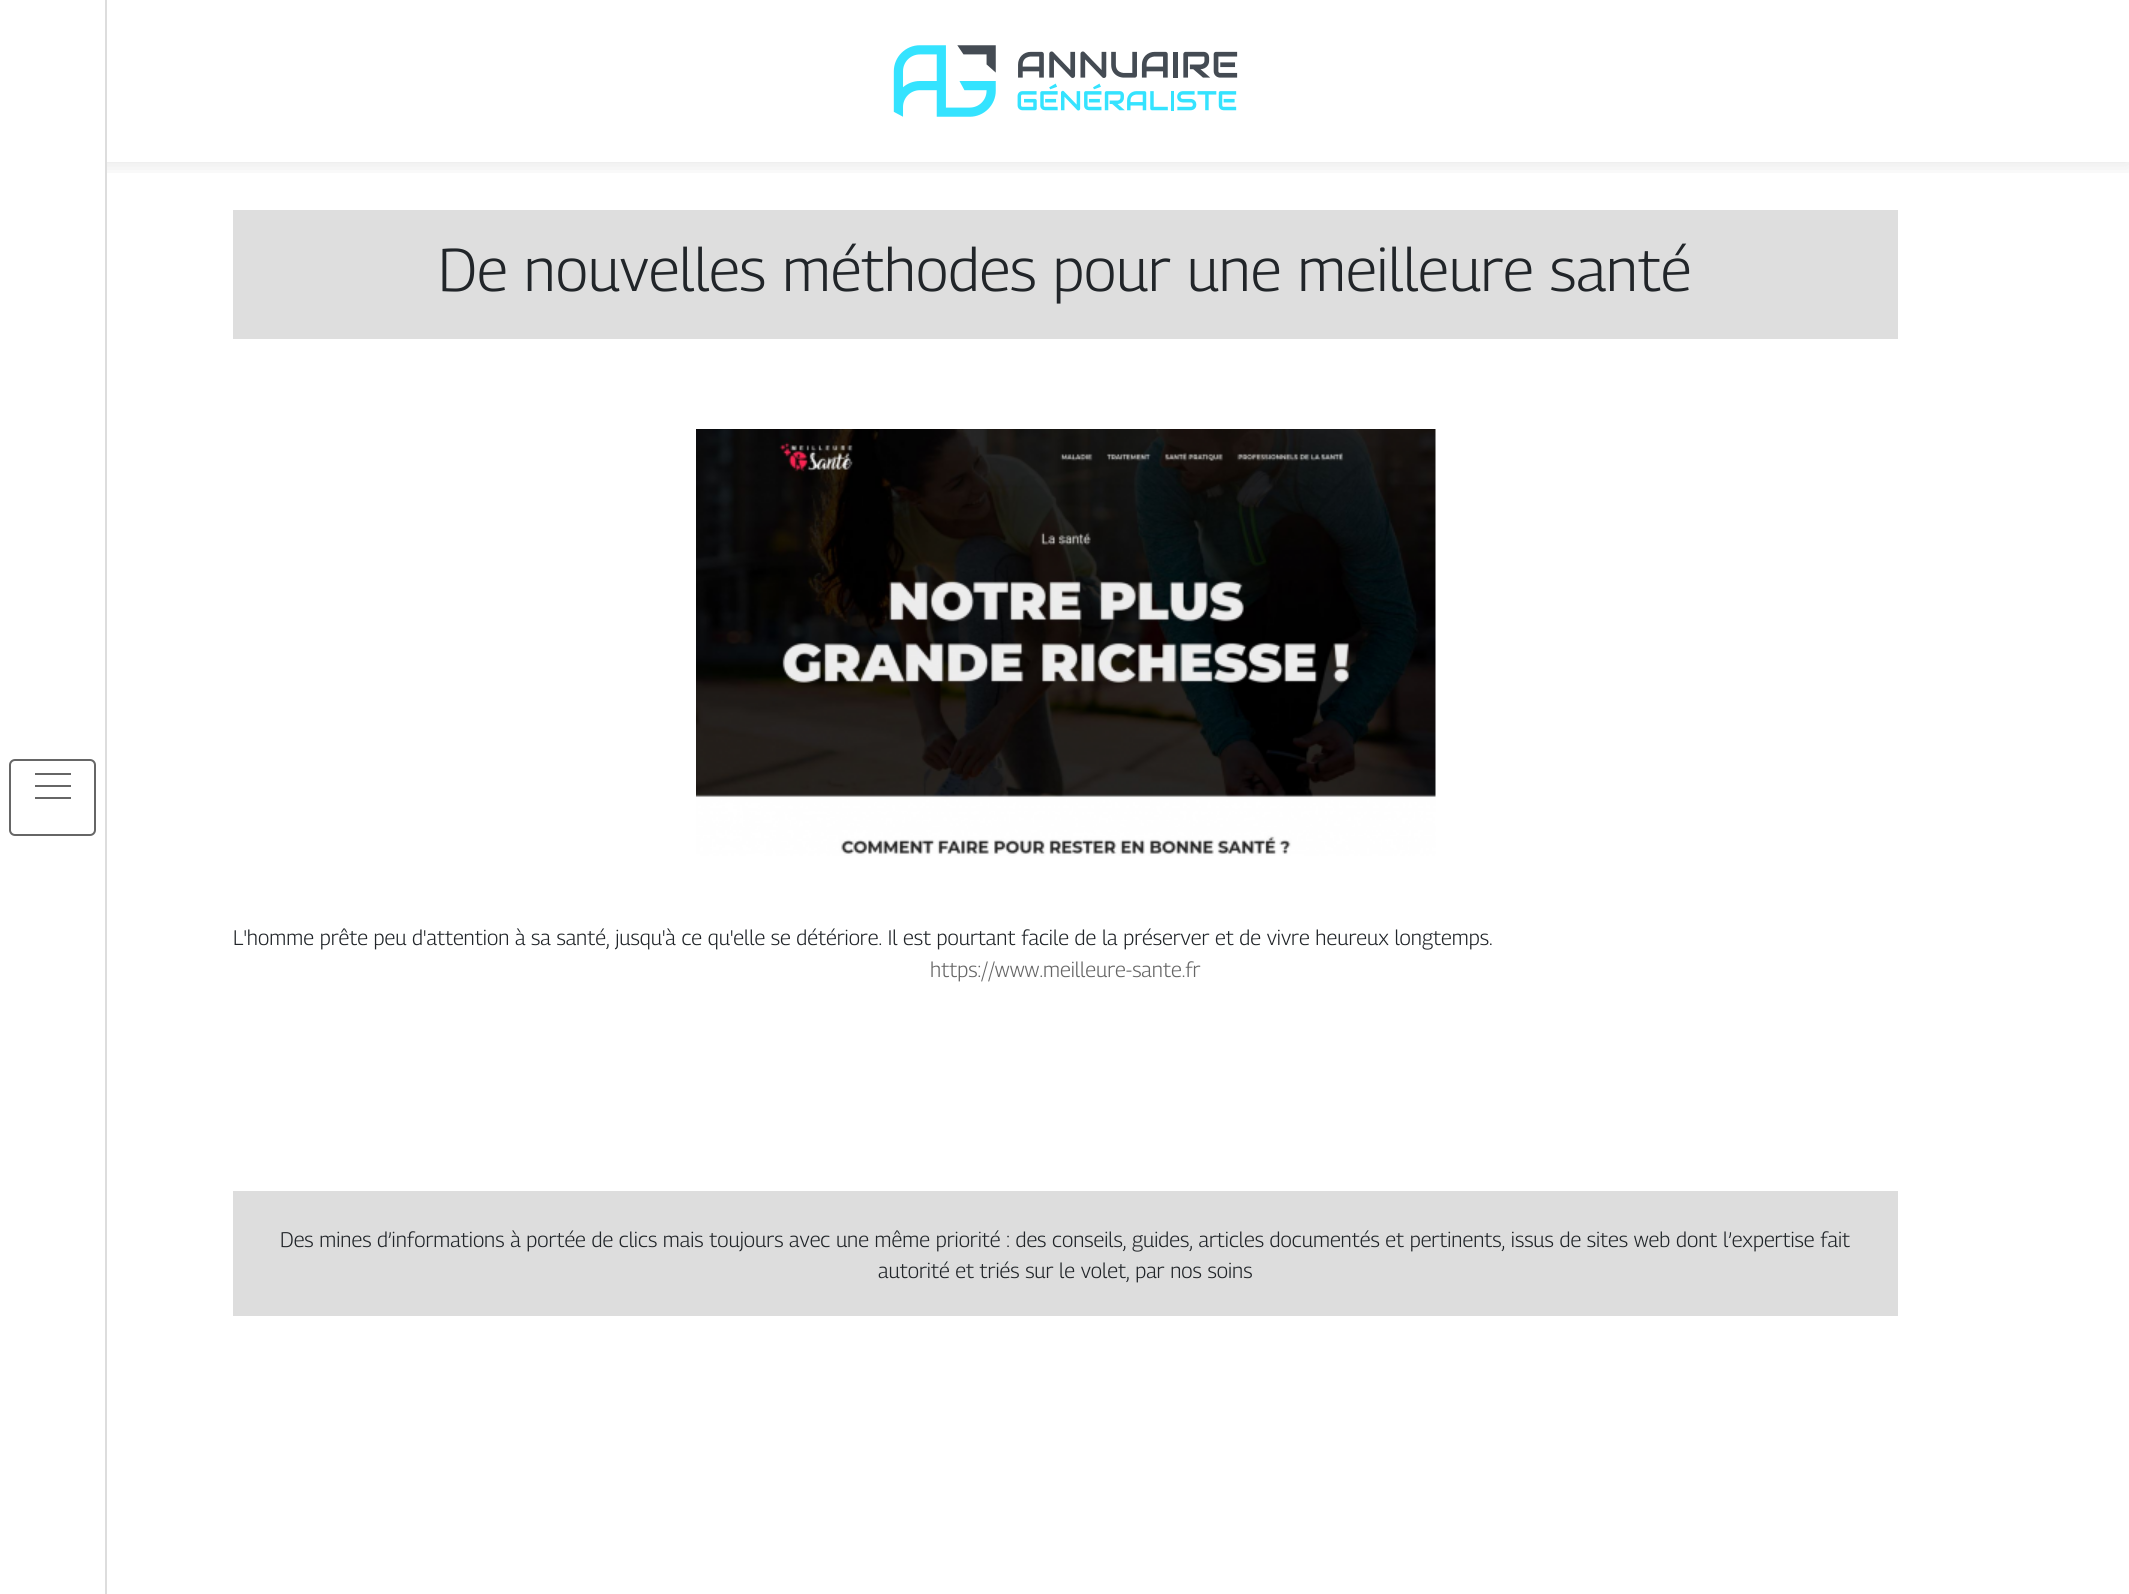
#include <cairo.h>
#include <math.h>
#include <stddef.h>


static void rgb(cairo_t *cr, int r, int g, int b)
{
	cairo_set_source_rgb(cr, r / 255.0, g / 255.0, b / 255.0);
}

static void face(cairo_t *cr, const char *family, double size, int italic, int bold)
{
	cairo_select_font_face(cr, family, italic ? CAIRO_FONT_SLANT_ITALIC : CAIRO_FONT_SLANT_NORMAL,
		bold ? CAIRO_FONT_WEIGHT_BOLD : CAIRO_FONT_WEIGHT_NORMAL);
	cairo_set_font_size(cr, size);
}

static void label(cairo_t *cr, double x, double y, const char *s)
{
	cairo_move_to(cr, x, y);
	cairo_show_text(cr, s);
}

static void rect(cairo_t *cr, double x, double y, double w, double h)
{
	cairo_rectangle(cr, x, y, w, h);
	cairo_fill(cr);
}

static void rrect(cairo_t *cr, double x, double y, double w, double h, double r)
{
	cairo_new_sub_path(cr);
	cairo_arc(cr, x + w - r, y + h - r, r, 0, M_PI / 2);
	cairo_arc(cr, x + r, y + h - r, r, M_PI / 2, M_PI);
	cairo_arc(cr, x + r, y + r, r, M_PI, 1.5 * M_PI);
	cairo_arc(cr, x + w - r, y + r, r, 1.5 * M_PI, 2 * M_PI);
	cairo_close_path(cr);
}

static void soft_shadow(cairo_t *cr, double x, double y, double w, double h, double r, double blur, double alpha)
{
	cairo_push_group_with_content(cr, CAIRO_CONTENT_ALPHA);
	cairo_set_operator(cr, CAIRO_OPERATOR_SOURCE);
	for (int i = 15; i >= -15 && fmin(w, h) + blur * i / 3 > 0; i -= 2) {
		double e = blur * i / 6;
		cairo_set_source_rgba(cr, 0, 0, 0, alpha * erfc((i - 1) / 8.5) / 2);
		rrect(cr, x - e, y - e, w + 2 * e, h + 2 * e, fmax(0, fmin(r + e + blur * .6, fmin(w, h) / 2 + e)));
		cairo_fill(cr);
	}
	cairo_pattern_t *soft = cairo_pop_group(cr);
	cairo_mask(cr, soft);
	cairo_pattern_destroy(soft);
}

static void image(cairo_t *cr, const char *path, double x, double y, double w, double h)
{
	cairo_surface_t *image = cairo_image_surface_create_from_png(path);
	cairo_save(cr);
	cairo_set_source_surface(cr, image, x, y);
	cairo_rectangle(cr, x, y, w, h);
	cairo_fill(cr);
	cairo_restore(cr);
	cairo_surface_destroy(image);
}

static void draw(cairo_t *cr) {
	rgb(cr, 255, 255, 255);
	cairo_paint(cr);
	cairo_save(cr);
	cairo_rectangle(cr, 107, 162, 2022, 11);
	cairo_clip(cr);
	rgb(cr, 0, 0, 0);
	soft_shadow(cr, 0, 3, 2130, 162, 0, 10, 0.1);
	cairo_restore(cr);
	rgb(cr, 255, 255, 255);
	rect(cr, 0, 162, 105, 16);
	rgb(cr, 221, 221, 221);
	rect(cr, 105, 0, 2, 1594);
	rrect(cr, 10, 760, 85, 75, 5);
	rgb(cr, 102, 102, 102);
	cairo_stroke(cr);
	rect(cr, 35, 773, 36, 2);
	rect(cr, 35, 785, 36, 2);
	rect(cr, 35, 797, 36, 2);
	image(cr, "image0.png", 893, 45, 345, 72);
	rgb(cr, 222, 222, 222);
	rect(cr, 233, 210, 1665, 129);
	face(cr, "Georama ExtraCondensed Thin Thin", 60, 0, 0);
	rgb(cr, 33, 37, 41);
	label(cr, 438, 291, "De nouvelles méthodes pour une meilleure santé");
	image(cr, "image1.png", 696, 429, 740, 427);
	face(cr, "Georama ExtraCondensed Thin Thin", 21, 0, 0);
	label(cr, 233, 945, "L'homme prête peu d'attention à sa santé, jusqu'à ce qu'elle se détériore. Il est pourtant facile de la préserver et de vivre heureux longtemps.");
	rgb(cr, 102, 102, 102);
	label(cr, 930, 977, "https://www.meilleure-sante.fr");
	rgb(cr, 221, 221, 221);
	rect(cr, 233, 1191, 1665, 125);
	rgb(cr, 33, 37, 41);
	label(cr, 280, 1247, "Des mines d’informations à portée de clics mais toujours avec une même priorité : des conseils, guides, articles documentés et pertinents, issus de sites web dont l’expertise fait");
	label(cr, 878, 1278, "autorité et triés sur le volet, par nos soins");
}

int main(void) {
	cairo_surface_t *surface = cairo_image_surface_create(CAIRO_FORMAT_RGB24, 2129, 1594);
	cairo_t *cr = cairo_create(surface);
	cairo_font_options_t *options = cairo_font_options_create();
	cairo_font_options_set_hint_metrics(options, CAIRO_HINT_METRICS_OFF);
	cairo_font_options_set_hint_style(options, CAIRO_HINT_STYLE_NONE);
	cairo_set_font_options(cr, options);
	cairo_set_miter_limit(cr, 4);
	draw(cr);
	cairo_surface_write_to_png(surface, "render.png");
	cairo_font_options_destroy(options);
	cairo_destroy(cr);
	cairo_surface_destroy(surface);
	return 0;
}
